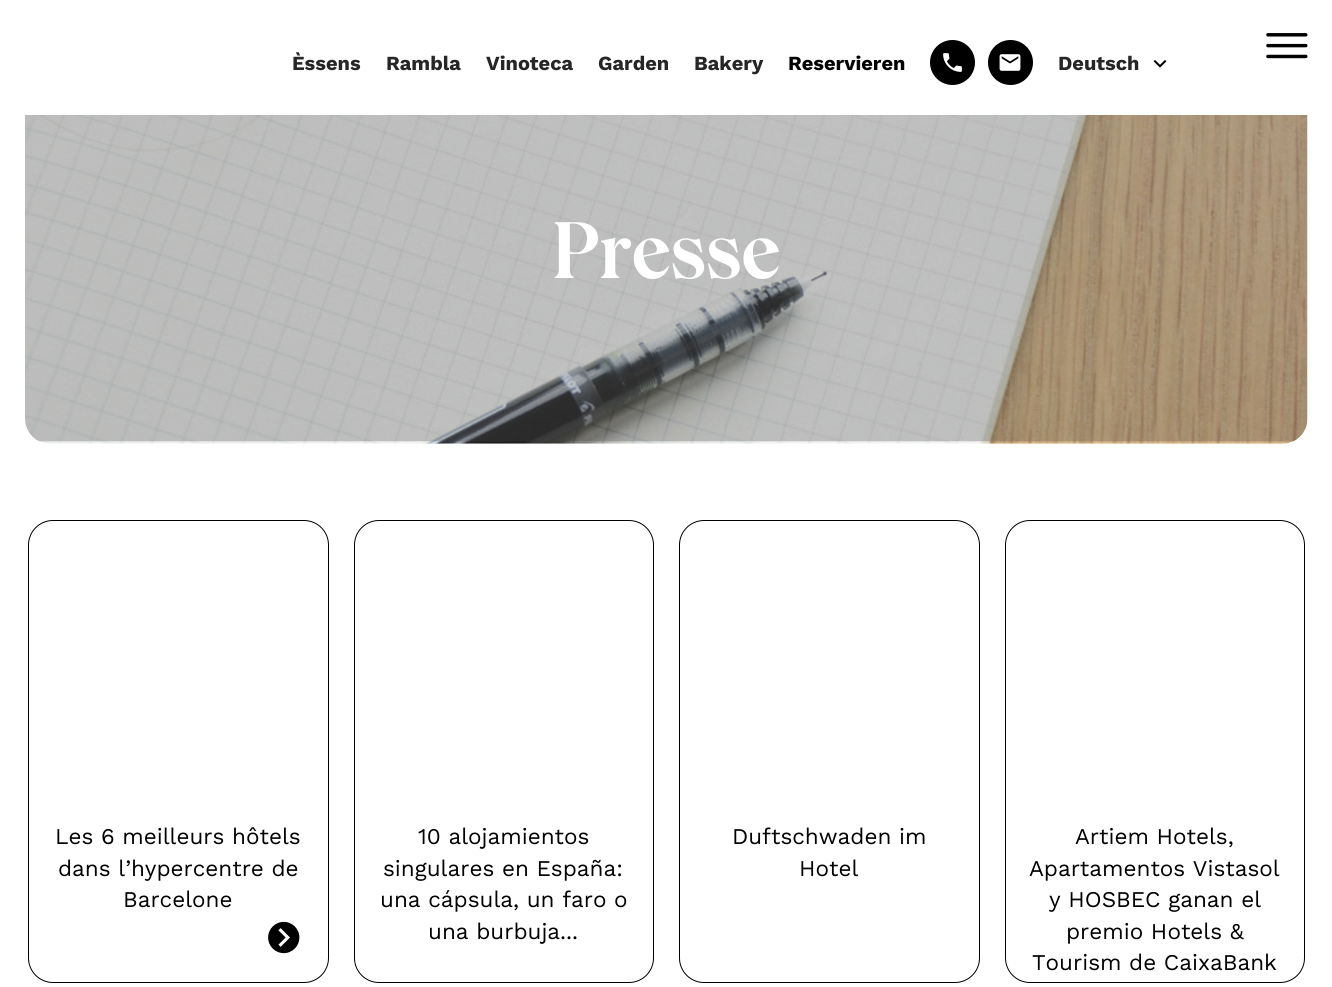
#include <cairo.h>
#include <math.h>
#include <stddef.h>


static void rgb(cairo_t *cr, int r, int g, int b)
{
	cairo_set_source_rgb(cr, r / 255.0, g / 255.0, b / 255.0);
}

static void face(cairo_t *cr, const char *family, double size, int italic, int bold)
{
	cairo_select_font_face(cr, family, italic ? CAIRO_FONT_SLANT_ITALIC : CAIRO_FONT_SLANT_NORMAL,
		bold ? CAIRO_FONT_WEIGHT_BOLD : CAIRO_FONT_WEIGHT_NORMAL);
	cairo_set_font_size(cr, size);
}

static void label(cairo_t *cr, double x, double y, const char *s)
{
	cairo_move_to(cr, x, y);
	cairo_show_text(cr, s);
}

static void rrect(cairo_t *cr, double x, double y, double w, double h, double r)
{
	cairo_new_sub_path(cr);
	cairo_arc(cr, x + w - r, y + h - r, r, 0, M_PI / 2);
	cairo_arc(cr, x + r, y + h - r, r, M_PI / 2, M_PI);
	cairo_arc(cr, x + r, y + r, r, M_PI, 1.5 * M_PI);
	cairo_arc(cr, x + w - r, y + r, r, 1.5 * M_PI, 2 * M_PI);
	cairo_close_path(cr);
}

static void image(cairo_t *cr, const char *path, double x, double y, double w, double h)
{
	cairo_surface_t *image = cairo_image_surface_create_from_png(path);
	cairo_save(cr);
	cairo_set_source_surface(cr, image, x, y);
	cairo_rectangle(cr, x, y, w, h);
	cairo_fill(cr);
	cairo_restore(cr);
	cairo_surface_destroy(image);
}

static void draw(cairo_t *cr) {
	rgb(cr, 255, 255, 255);
	cairo_paint(cr);
	image(cr, "image0.png", 1266, 33, 42, 26);
	face(cr, "Work Sans", 20, 0, 1);
	rgb(cr, 38, 38, 38);
	label(cr, 292, 70, "Èssens");
	label(cr, 386, 70, "Rambla");
	label(cr, 486, 70, "Vinoteca");
	label(cr, 598, 70, "Garden");
	label(cr, 694, 70, "Bakery");
	rgb(cr, 0, 0, 0);
	label(cr, 788, 70, "Reservieren");
	cairo_new_path(cr);
	cairo_arc(cr, 952.5, 62.5, 22.5, 0, 2 * M_PI);
	cairo_fill(cr);
	image(cr, "image1.png", 943, 53, 19, 19);
	cairo_arc(cr, 1010.5, 62.5, 22.5, 0, 2 * M_PI);
	cairo_fill(cr);
	image(cr, "image2.png", 999, 54, 22, 17);
	rgb(cr, 38, 38, 38);
	label(cr, 1058, 70, "Deutsch");
	image(cr, "image3.png", 1153, 60, 14, 8);
	image(cr, "image4.png", 25, 115, 1283, 329);
	face(cr, "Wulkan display", 77.5, 0, 1);
	rgb(cr, 255, 255, 255);
	label(cr, 552, 278, "Presse");
	rrect(cr, 28.5, 520.5, 300, 462, 24.5);
	rgb(cr, 0, 0, 0);
	cairo_set_line_width(cr, 1);
	cairo_stroke(cr);
	face(cr, "Work Sans", 22.5, 0, 0);
	label(cr, 55, 844, "Les 6 meilleurs hôtels");
	label(cr, 58, 876, "dans l’hypercentre de");
	label(cr, 123, 907, "Barcelone");
	image(cr, "image5.png", 268, 921, 32, 33);
	rrect(cr, 354.5, 520.5, 299, 462, 24.5);
	cairo_stroke(cr);
	label(cr, 418, 844, "10 alojamientos");
	label(cr, 383, 876, "singulares en España:");
	label(cr, 380, 907, "una cápsula, un faro o");
	label(cr, 428, 939, "una burbuja...");
	rrect(cr, 679.5, 520.5, 300, 462, 24.5);
	cairo_stroke(cr);
	label(cr, 732, 844, "Duftschwaden im");
	label(cr, 799, 876, "Hotel");
	rrect(cr, 1005.5, 520.5, 299, 462, 24.5);
	cairo_stroke(cr);
	label(cr, 1075, 844, "Artiem Hotels,");
	label(cr, 1029, 876, "Apartamentos Vistasol");
	label(cr, 1049, 907, "y HOSBEC ganan el");
	label(cr, 1066, 939, "premio Hotels &");
	label(cr, 1032, 970, "Tourism de CaixaBank");
}

int main(void) {
	cairo_surface_t *surface = cairo_image_surface_create(CAIRO_FORMAT_RGB24, 1332, 987);
	cairo_t *cr = cairo_create(surface);
	cairo_font_options_t *options = cairo_font_options_create();
	cairo_font_options_set_hint_metrics(options, CAIRO_HINT_METRICS_OFF);
	cairo_font_options_set_hint_style(options, CAIRO_HINT_STYLE_NONE);
	cairo_set_font_options(cr, options);
	cairo_set_miter_limit(cr, 4);
	draw(cr);
	cairo_surface_write_to_png(surface, "render.png");
	cairo_font_options_destroy(options);
	cairo_destroy(cr);
	cairo_surface_destroy(surface);
	return 0;
}
